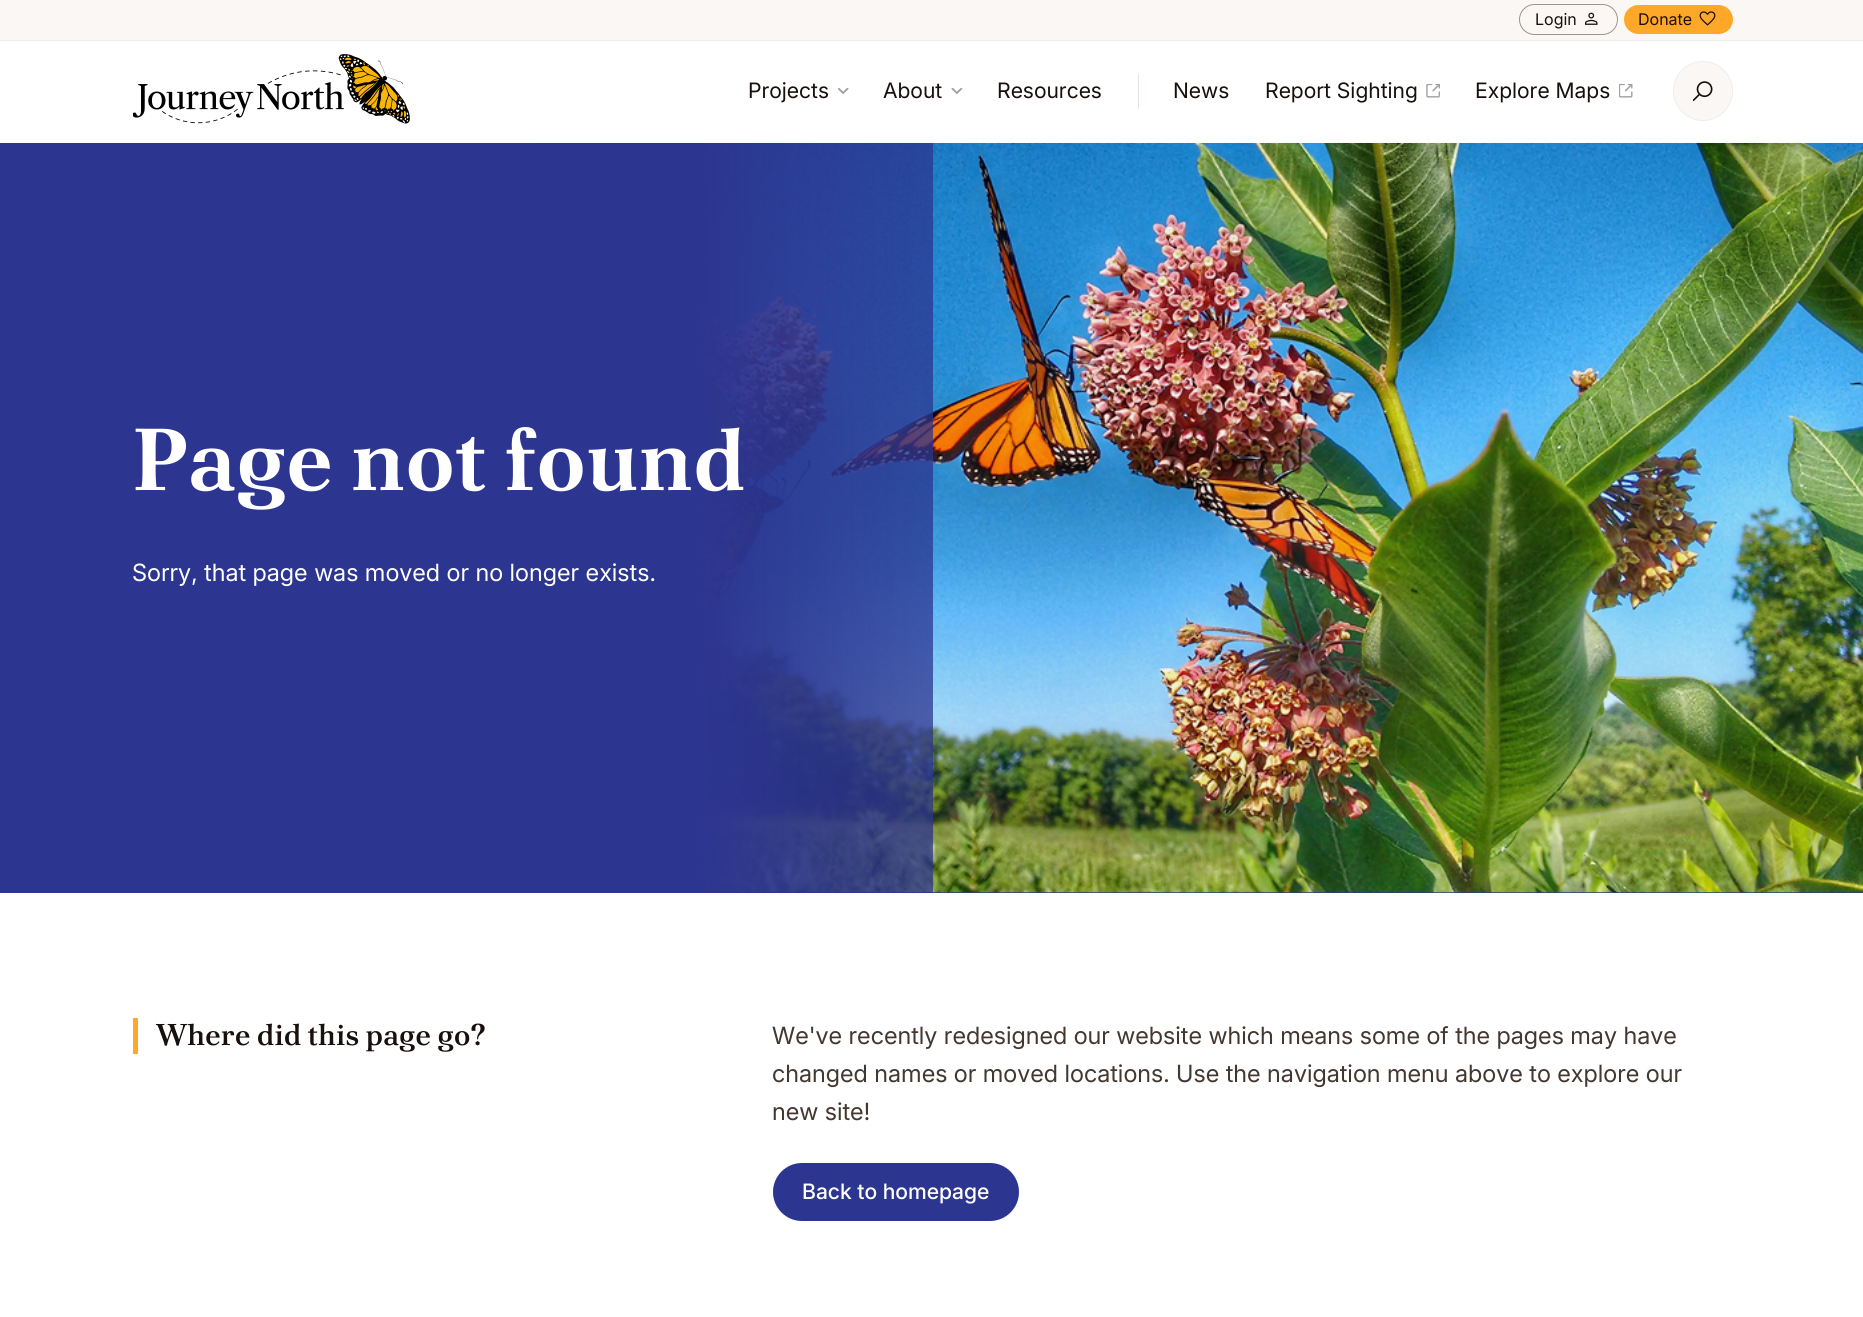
#include <cairo.h>
#include <math.h>
#include <stddef.h>


static void rgb(cairo_t *cr, int r, int g, int b)
{
	cairo_set_source_rgb(cr, r / 255.0, g / 255.0, b / 255.0);
}

static void face(cairo_t *cr, const char *family, double size, int italic, int bold)
{
	cairo_select_font_face(cr, family, italic ? CAIRO_FONT_SLANT_ITALIC : CAIRO_FONT_SLANT_NORMAL,
		bold ? CAIRO_FONT_WEIGHT_BOLD : CAIRO_FONT_WEIGHT_NORMAL);
	cairo_set_font_size(cr, size);
}

static void label(cairo_t *cr, double x, double y, const char *s)
{
	cairo_move_to(cr, x, y);
	cairo_show_text(cr, s);
}

static void rect(cairo_t *cr, double x, double y, double w, double h)
{
	cairo_rectangle(cr, x, y, w, h);
	cairo_fill(cr);
}

static void rrect(cairo_t *cr, double x, double y, double w, double h, double r)
{
	cairo_new_sub_path(cr);
	cairo_arc(cr, x + w - r, y + h - r, r, 0, M_PI / 2);
	cairo_arc(cr, x + r, y + h - r, r, M_PI / 2, M_PI);
	cairo_arc(cr, x + r, y + r, r, M_PI, 1.5 * M_PI);
	cairo_arc(cr, x + w - r, y + r, r, 1.5 * M_PI, 2 * M_PI);
	cairo_close_path(cr);
}

static void image(cairo_t *cr, const char *path, double x, double y, double w, double h)
{
	cairo_surface_t *image = cairo_image_surface_create_from_png(path);
	cairo_save(cr);
	cairo_set_source_surface(cr, image, x, y);
	cairo_rectangle(cr, x, y, w, h);
	cairo_fill(cr);
	cairo_restore(cr);
	cairo_surface_destroy(image);
}

static void draw(cairo_t *cr) {
	cairo_pattern_t *gradient;
	rgb(cr, 255, 255, 255);
	cairo_paint(cr);
	rgb(cr, 35, 67, 125);
	rect(cr, 705, 143, 1158, 750);
	image(cr, "image8.png", 532, 142, 1331, 751);
	cairo_set_source_rgba(cr, 1, 1, 1, 0.9);
	rect(cr, 532, 142, 1331, 1);
	rgb(cr, 251, 247, 244);
	rect(cr, 0, 0, 1863, 40);
	rgb(cr, 241, 237, 233);
	rect(cr, 0, 40, 1863, 1);
	rrect(cr, 1519.5, 4.5, 98, 30, 15);
	rgb(cr, 160, 146, 141);
	cairo_set_line_width(cr, 1);
	cairo_stroke(cr);
	face(cr, "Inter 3", 16, 0, 0);
	rgb(cr, 23, 16, 13);
	label(cr, 1535, 25, "Login");
	image(cr, "image0.png", 1585, 12, 13, 13);
	rgb(cr, 255, 167, 40);
	rrect(cr, 1624, 5, 109, 29, 14.5);
	cairo_fill(cr);
	rgb(cr, 23, 16, 13);
	label(cr, 1638, 25, "Donate");
	image(cr, "image1.png", 1699, 11, 17, 15);
	image(cr, "image2.png", 133, 54, 277, 70);
	face(cr, "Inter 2", 21.25, 0, 0);
	label(cr, 748, 98, "Projects");
	image(cr, "image3.png", 838, 88, 11, 7);
	label(cr, 883, 98, "About");
	image(cr, "image4.png", 951, 88, 12, 7);
	rgb(cr, 233, 226, 222);
	rect(cr, 1138, 74, 1, 35);
	rgb(cr, 23, 16, 13);
	label(cr, 997, 98, "Resources");
	label(cr, 1173, 98, "News");
	label(cr, 1265, 98, "Report Sighting");
	image(cr, "image5.png", 1426, 84, 14, 14);
	label(cr, 1475, 98, "Explore Maps");
	image(cr, "image6.png", 1619, 84, 14, 14);
	rgb(cr, 251, 247, 244);
	cairo_arc(cr, 1703, 91, 29.5, 0, 2 * M_PI);
	cairo_fill_preserve(cr);
	rgb(cr, 241, 237, 233);
	cairo_stroke(cr);
	image(cr, "image7.png", 1693, 81, 20, 20);
	gradient = cairo_pattern_create_linear(933, 518, 0, 518);
	cairo_pattern_add_color_stop_rgba(gradient, 0, 0.173, 0.208, 0.565, 0.75);
	cairo_pattern_add_color_stop_rgba(gradient, 0.25, 0.173, 0.208, 0.565, 1);
	cairo_pattern_add_color_stop_rgba(gradient, 0.5, 0.173, 0.208, 0.565, 1);
	cairo_set_source(cr, gradient);
	cairo_pattern_destroy(gradient);
	rect(cr, 0, 143, 933, 750);
	face(cr, "Poltawski Nowy", 87.5, 0, 1);
	rgb(cr, 255, 255, 255);
	label(cr, 132, 490, "Page not found");
	face(cr, "Inter", 23.75, 0, 0);
	label(cr, 132, 581, "Sorry, that page was moved or no longer exists.");
	rgb(cr, 255, 167, 40);
	rect(cr, 133, 1018, 5, 36);
	face(cr, "Poltawski Nowy SemiBold", 30, 0, 0);
	rgb(cr, 23, 16, 13);
	label(cr, 156, 1045, "Where did this page go?");
	face(cr, "Inter", 23.75, 0, 0);
	rgb(cr, 67, 55, 48);
	label(cr, 772, 1044, "We've recently redesigned our website which means some of the pages may have");
	label(cr, 772, 1082, "changed names or moved locations. Use the navigation menu above to explore our");
	label(cr, 772, 1120, "new site!");
	rgb(cr, 44, 53, 144);
	rrect(cr, 773, 1163, 246, 58, 29);
	cairo_fill(cr);
	face(cr, "Inter Medium", 21.25, 0, 0);
	rgb(cr, 255, 255, 255);
	label(cr, 802, 1199, "Back to homepage");
}

int main(void) {
	cairo_surface_t *surface = cairo_image_surface_create(CAIRO_FORMAT_RGB24, 1863, 1317);
	cairo_t *cr = cairo_create(surface);
	cairo_font_options_t *options = cairo_font_options_create();
	cairo_font_options_set_hint_metrics(options, CAIRO_HINT_METRICS_OFF);
	cairo_font_options_set_hint_style(options, CAIRO_HINT_STYLE_NONE);
	cairo_set_font_options(cr, options);
	cairo_set_miter_limit(cr, 4);
	draw(cr);
	cairo_surface_write_to_png(surface, "render.png");
	cairo_font_options_destroy(options);
	cairo_destroy(cr);
	cairo_surface_destroy(surface);
	return 0;
}
